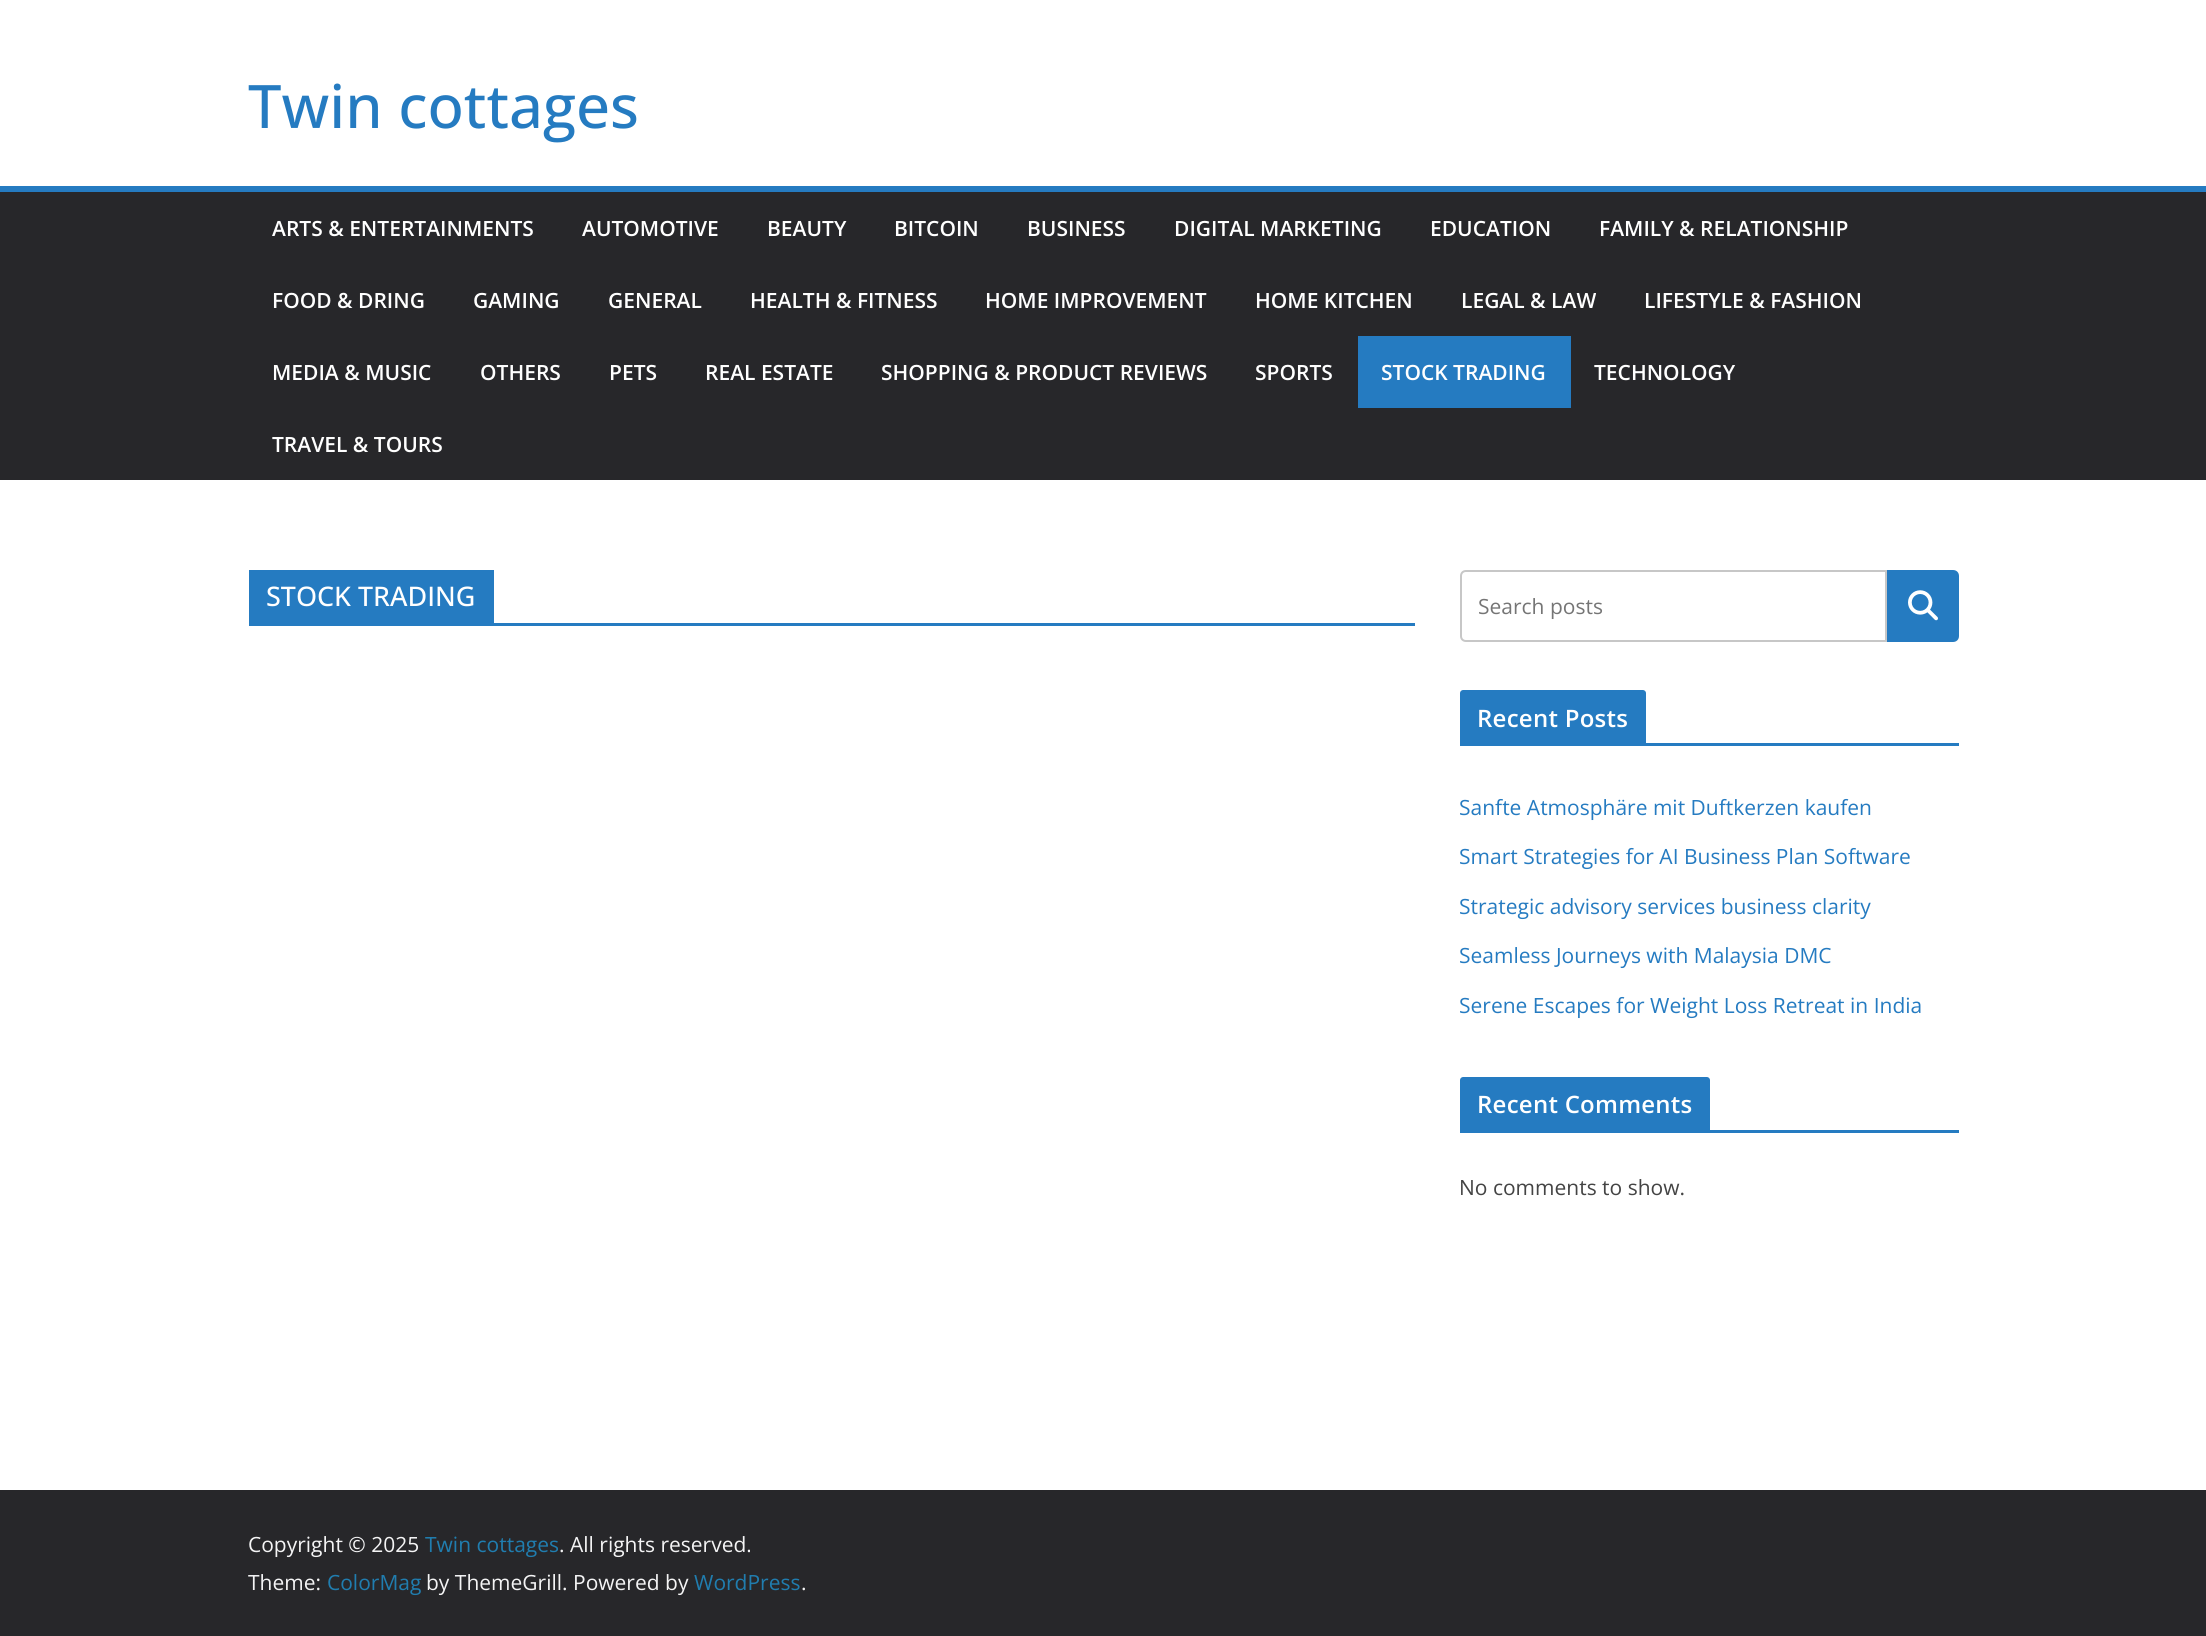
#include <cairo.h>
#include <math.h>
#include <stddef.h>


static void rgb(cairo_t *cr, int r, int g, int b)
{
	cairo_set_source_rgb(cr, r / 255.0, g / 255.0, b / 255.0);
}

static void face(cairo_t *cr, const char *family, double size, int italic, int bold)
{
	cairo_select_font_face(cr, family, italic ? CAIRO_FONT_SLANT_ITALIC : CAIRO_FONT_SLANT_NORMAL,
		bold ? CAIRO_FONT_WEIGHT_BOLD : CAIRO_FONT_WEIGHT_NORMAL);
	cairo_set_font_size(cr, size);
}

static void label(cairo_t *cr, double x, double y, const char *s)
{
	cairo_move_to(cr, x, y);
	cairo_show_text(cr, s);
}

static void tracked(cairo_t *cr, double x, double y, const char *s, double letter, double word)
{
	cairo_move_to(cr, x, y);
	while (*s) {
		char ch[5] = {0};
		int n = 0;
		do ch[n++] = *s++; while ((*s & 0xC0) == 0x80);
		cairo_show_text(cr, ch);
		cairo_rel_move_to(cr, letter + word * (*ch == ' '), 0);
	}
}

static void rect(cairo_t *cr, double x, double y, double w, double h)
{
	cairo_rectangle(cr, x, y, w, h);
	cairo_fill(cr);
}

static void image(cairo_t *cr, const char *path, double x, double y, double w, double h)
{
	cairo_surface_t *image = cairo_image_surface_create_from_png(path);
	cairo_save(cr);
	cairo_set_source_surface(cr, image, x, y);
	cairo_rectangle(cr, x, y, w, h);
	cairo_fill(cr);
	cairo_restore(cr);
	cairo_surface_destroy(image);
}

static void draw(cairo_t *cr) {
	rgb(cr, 255, 255, 255);
	cairo_paint(cr);
	face(cr, "Open Sans Medium", 60, 0, 0);
	rgb(cr, 37, 123, 193);
	label(cr, 248, 128, "Twin cottages");
	rgb(cr, 39, 39, 42);
	rect(cr, 0, 192, 2206, 288);
	rgb(cr, 37, 123, 193);
	rect(cr, 0, 186, 2206, 6);
	face(cr, "Open Sans SemiBold", 21, 0, 0);
	rgb(cr, 255, 255, 255);
	label(cr, 272, 236, "ARTS & ENTERTAINMENTS");
	label(cr, 582, 236, "AUTOMOTIVE");
	label(cr, 767, 236, "BEAUTY");
	label(cr, 894, 236, "BITCOIN");
	label(cr, 1027, 236, "BUSINESS");
	label(cr, 1174, 236, "DIGITAL MARKETING");
	label(cr, 1430, 236, "EDUCATION");
	label(cr, 1599, 236, "FAMILY & RELATIONSHIP");
	label(cr, 272, 308, "FOOD & DRING");
	label(cr, 473, 308, "GAMING");
	label(cr, 608, 308, "GENERAL");
	label(cr, 750, 308, "HEALTH & FITNESS");
	label(cr, 985, 308, "HOME IMPROVEMENT");
	label(cr, 1255, 308, "HOME KITCHEN");
	label(cr, 1461, 308, "LEGAL & LAW");
	label(cr, 1644, 308, "LIFESTYLE & FASHION");
	label(cr, 272, 380, "MEDIA & MUSIC");
	label(cr, 480, 380, "OTHERS");
	label(cr, 609, 380, "PETS");
	label(cr, 705, 380, "REAL ESTATE");
	label(cr, 881, 380, "SHOPPING & PRODUCT REVIEWS");
	label(cr, 1255, 380, "SPORTS");
	rgb(cr, 37, 123, 193);
	rect(cr, 1358, 336, 213, 72);
	rgb(cr, 255, 255, 255);
	label(cr, 1381, 380, "STOCK TRADING");
	label(cr, 1594, 380, "TECHNOLOGY");
	label(cr, 272, 452, "TRAVEL & TOURS");
	rgb(cr, 37, 123, 193);
	rect(cr, 249, 623, 1166, 3);
	rect(cr, 249, 570, 245, 53);
	face(cr, "Open Sans Medium", 27, 0, 0);
	rgb(cr, 255, 255, 255);
	label(cr, 266, 606, "STOCK TRADING");
	cairo_new_path(cr);
	cairo_move_to(cr, 1466, 571);
	cairo_line_to(cr, 1886, 571);
	cairo_line_to(cr, 1886, 641);
	cairo_line_to(cr, 1466, 641);
	cairo_curve_to(cr, 1463, 641, 1461, 639, 1461, 636);
	cairo_line_to(cr, 1461, 576);
	cairo_curve_to(cr, 1461, 573, 1463, 571, 1466, 571);
	cairo_close_path(cr);
	rgb(cr, 199, 199, 199);
	cairo_stroke(cr);
	face(cr, "Open Sans", 21, 0, 0);
	rgb(cr, 117, 117, 117);
	label(cr, 1478, 614, "Search posts");
	rgb(cr, 37, 123, 193);
	cairo_new_path(cr);
	cairo_move_to(cr, 1887, 570);
	cairo_line_to(cr, 1953, 570);
	cairo_curve_to(cr, 1956.5, 570, 1959, 572.5, 1959, 576);
	cairo_line_to(cr, 1959, 636);
	cairo_curve_to(cr, 1959, 639.5, 1956.5, 642, 1953, 642);
	cairo_line_to(cr, 1887, 642);
	cairo_close_path(cr);
	cairo_fill(cr);
	image(cr, "image0.png", 1908, 590, 30, 31);
	rect(cr, 1460, 743, 499, 3);
	cairo_new_path(cr);
	cairo_move_to(cr, 1463, 690);
	cairo_line_to(cr, 1643, 690);
	cairo_curve_to(cr, 1644.5, 690, 1646, 691.5, 1646, 693);
	cairo_line_to(cr, 1646, 743);
	cairo_line_to(cr, 1460, 743);
	cairo_line_to(cr, 1460, 693);
	cairo_curve_to(cr, 1460, 691.5, 1461.5, 690, 1463, 690);
	cairo_close_path(cr);
	cairo_fill(cr);
	face(cr, "Open Sans SemiBold", 24, 0, 0);
	rgb(cr, 255, 255, 255);
	tracked(cr, 1477, 727, "Recent Posts", 0.25, 0);
	face(cr, "Open Sans", 21, 0, 0);
	rgb(cr, 37, 123, 193);
	label(cr, 1459, 815, "Sanfte Atmosphäre mit Duftkerzen kaufen");
	label(cr, 1459, 864, "Smart Strategies for AI Business Plan Software");
	label(cr, 1459, 914, "Strategic advisory services business clarity");
	label(cr, 1459, 963, "Seamless Journeys with Malaysia DMC");
	label(cr, 1459, 1013, "Serene Escapes for Weight Loss Retreat in India");
	rect(cr, 1460, 1130, 499, 3);
	cairo_new_path(cr);
	cairo_move_to(cr, 1463, 1077);
	cairo_line_to(cr, 1707, 1077);
	cairo_curve_to(cr, 1708.5, 1077, 1710, 1078.5, 1710, 1080);
	cairo_line_to(cr, 1710, 1130);
	cairo_line_to(cr, 1460, 1130);
	cairo_line_to(cr, 1460, 1080);
	cairo_curve_to(cr, 1460, 1078.5, 1461.5, 1077, 1463, 1077);
	cairo_close_path(cr);
	cairo_fill(cr);
	face(cr, "Open Sans SemiBold", 24, 0, 0);
	rgb(cr, 255, 255, 255);
	tracked(cr, 1477, 1113, "Recent Comments", 0.25, 0);
	face(cr, "Open Sans", 21, 0, 0);
	rgb(cr, 68, 68, 68);
	label(cr, 1459, 1195, "No comments to show.");
	rgb(cr, 39, 39, 42);
	rect(cr, 0, 1490, 2206, 146);
	rgb(cr, 244, 244, 245);
	label(cr, 248, 1552, "Copyright © 2025");
	rgb(cr, 32, 125, 175);
	label(cr, 425, 1552, "Twin cottages");
	rgb(cr, 244, 244, 245);
	label(cr, 559, 1552, ". All rights reserved.");
	label(cr, 248, 1590, "Theme:");
	rgb(cr, 32, 125, 175);
	label(cr, 327, 1590, "ColorMag");
	rgb(cr, 244, 244, 245);
	label(cr, 426, 1590, "by ThemeGrill. Powered by");
	rgb(cr, 32, 125, 175);
	label(cr, 694, 1590, "WordPress");
	rgb(cr, 244, 244, 245);
	label(cr, 801, 1590, ".");
}

int main(void) {
	cairo_surface_t *surface = cairo_image_surface_create(CAIRO_FORMAT_RGB24, 2206, 1636);
	cairo_t *cr = cairo_create(surface);
	cairo_font_options_t *options = cairo_font_options_create();
	cairo_font_options_set_hint_metrics(options, CAIRO_HINT_METRICS_OFF);
	cairo_font_options_set_hint_style(options, CAIRO_HINT_STYLE_NONE);
	cairo_set_font_options(cr, options);
	cairo_set_miter_limit(cr, 4);
	draw(cr);
	cairo_surface_write_to_png(surface, "render.png");
	cairo_font_options_destroy(options);
	cairo_destroy(cr);
	cairo_surface_destroy(surface);
	return 0;
}
